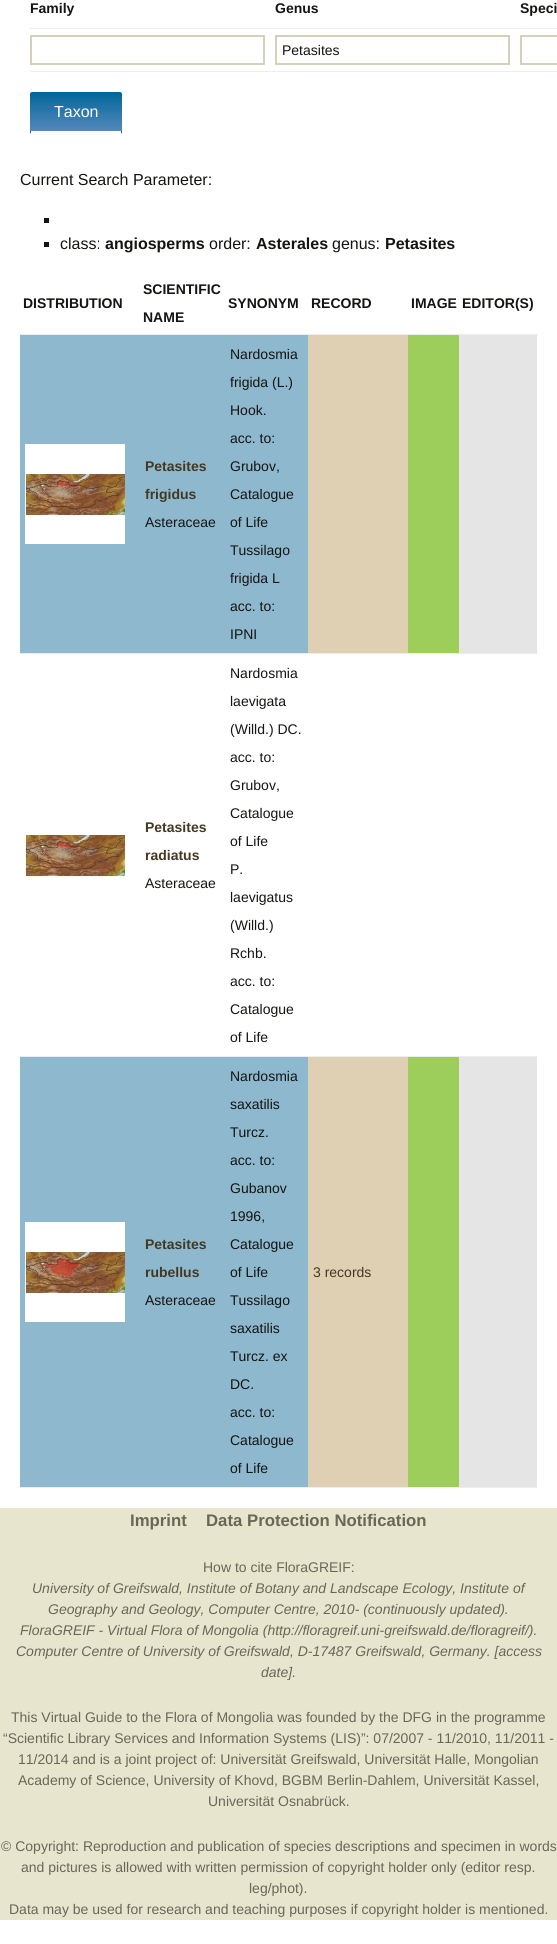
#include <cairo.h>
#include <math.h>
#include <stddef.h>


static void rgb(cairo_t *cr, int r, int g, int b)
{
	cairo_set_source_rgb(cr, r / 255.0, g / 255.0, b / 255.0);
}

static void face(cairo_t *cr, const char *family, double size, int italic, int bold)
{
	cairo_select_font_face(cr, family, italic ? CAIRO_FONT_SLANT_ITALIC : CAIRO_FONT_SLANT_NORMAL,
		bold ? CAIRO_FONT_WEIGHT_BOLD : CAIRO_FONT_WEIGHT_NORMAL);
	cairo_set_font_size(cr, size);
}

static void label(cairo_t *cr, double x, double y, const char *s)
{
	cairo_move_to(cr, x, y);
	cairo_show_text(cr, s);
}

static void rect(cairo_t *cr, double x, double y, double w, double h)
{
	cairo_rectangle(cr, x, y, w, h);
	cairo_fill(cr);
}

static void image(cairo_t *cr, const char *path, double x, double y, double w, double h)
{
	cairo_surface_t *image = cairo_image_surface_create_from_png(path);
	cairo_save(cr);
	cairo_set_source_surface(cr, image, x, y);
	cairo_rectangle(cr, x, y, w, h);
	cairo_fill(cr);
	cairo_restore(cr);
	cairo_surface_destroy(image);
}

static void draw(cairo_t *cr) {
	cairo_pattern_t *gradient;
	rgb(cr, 255, 255, 255);
	cairo_paint(cr);
	rgb(cr, 237, 237, 237);
	rect(cr, 30, 71, 527, 1);
	face(cr, "Liberation Sans", 14, 0, 1);
	rgb(cr, 20, 20, 18);
	label(cr, 30, 13, "Family");
	label(cr, 275, 13, "Genus");
	label(cr, 520, 13, "Speci");
	rgb(cr, 237, 237, 237);
	rect(cr, 30, 28, 527, 1);
	cairo_rectangle(cr, 521, 36, 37, 28);
	rgb(cr, 212, 208, 186);
	cairo_stroke(cr);
	cairo_rectangle(cr, 31, 36, 233, 28);
	cairo_stroke(cr);
	cairo_rectangle(cr, 276, 36, 233, 28);
	cairo_stroke(cr);
	face(cr, "Liberation Sans", 14, 0, 0);
	rgb(cr, 20, 20, 18);
	label(cr, 282, 55, "Petasites");
	gradient = cairo_pattern_create_linear(76, 92, 76, 131);
	cairo_pattern_add_color_stop_rgba(gradient, 0, 0, 0.4, 0.6, 1);
	cairo_pattern_add_color_stop_rgba(gradient, 1, 0.333, 0.533, 0.733, 1);
	cairo_set_source(cr, gradient);
	cairo_pattern_destroy(gradient);
	cairo_new_path(cr);
	cairo_move_to(cr, 32, 92);
	cairo_line_to(cr, 120, 92);
	cairo_curve_to(cr, 121, 92, 122, 93, 122, 94);
	cairo_line_to(cr, 122, 131);
	cairo_line_to(cr, 30, 131);
	cairo_line_to(cr, 30, 94);
	cairo_curve_to(cr, 30, 93, 31, 92, 32, 92);
	cairo_close_path(cr);
	cairo_fill(cr);
	gradient = cairo_pattern_create_linear(76, 131, 76, 170);
	cairo_pattern_add_color_stop_rgba(gradient, 0, 0, 0.4, 0.6, 1);
	cairo_pattern_add_color_stop_rgba(gradient, 1, 0.333, 0.533, 0.733, 1);
	cairo_set_source(cr, gradient);
	cairo_pattern_destroy(gradient);
	cairo_new_path(cr);
	cairo_move_to(cr, 30, 131);
	cairo_line_to(cr, 122, 131);
	cairo_line_to(cr, 122, 132);
	cairo_curve_to(cr, 122, 133, 121, 134, 120, 134);
	cairo_line_to(cr, 32, 134);
	cairo_curve_to(cr, 31, 134, 30, 133, 30, 132);
	cairo_close_path(cr);
	cairo_fill(cr);
	rgb(cr, 255, 255, 255);
	rect(cr, 31, 131, 90, 3);
	face(cr, "Liberation Sans", 16, 0, 0);
	label(cr, 54, 117, "Taxon");
	rgb(cr, 20, 20, 18);
	label(cr, 20, 185, "Current Search Parameter:");
	rect(cr, 44, 218, 5, 5);
	rect(cr, 44, 242, 5, 5);
	label(cr, 60, 249, "class:");
	face(cr, "Liberation Sans", 16, 0, 1);
	label(cr, 105, 249, "angiosperms");
	face(cr, "Liberation Sans", 16, 0, 0);
	label(cr, 209, 249, "order:");
	face(cr, "Liberation Sans", 16, 0, 1);
	label(cr, 256, 249, "Asterales");
	face(cr, "Liberation Sans", 16, 0, 0);
	label(cr, 332, 249, "genus:");
	face(cr, "Liberation Sans", 16, 0, 1);
	label(cr, 385, 249, "Petasites");
	rgb(cr, 237, 237, 237);
	rect(cr, 20, 1487, 517, 1);
	face(cr, "Liberation Sans", 14, 0, 1);
	rgb(cr, 20, 20, 18);
	label(cr, 23, 308, "DISTRIBUTION");
	label(cr, 143, 294, "SCIENTIFIC");
	label(cr, 143, 322, "NAME");
	label(cr, 228, 308, "SYNONYM");
	label(cr, 311, 308, "RECORD");
	label(cr, 411, 308, "IMAGE");
	label(cr, 462, 308, "EDITOR(S)");
	rgb(cr, 229, 229, 229);
	rect(cr, 459, 335, 78, 318);
	rgb(cr, 237, 237, 237);
	rect(cr, 20, 334, 518, 1);
	rgb(cr, 141, 184, 206);
	rect(cr, 20, 335, 288, 318);
	image(cr, "image0.png", 25, 444, 100, 100);
	rgb(cr, 223, 208, 180);
	rect(cr, 308, 335, 100, 318);
	rgb(cr, 157, 206, 92);
	rect(cr, 408, 335, 51, 318);
	rgb(cr, 69, 56, 35);
	label(cr, 145, 471, "Petasites");
	label(cr, 145, 499, "frigidus");
	face(cr, "Liberation Sans", 14, 0, 0);
	rgb(cr, 20, 20, 18);
	label(cr, 145, 527, "Asteraceae");
	label(cr, 230, 359, "Nardosmia");
	label(cr, 230, 387, "frigida (L.)");
	label(cr, 230, 415, "Hook.");
	label(cr, 230, 443, "acc. to:");
	label(cr, 230, 471, "Grubov,");
	label(cr, 230, 499, "Catalogue");
	label(cr, 230, 527, "of Life");
	label(cr, 230, 555, "Tussilago");
	label(cr, 230, 583, "frigida L");
	label(cr, 230, 611, "acc. to:");
	label(cr, 230, 639, "IPNI");
	rgb(cr, 237, 237, 237);
	rect(cr, 20, 653, 518, 1);
	image(cr, "image1.png", 25, 834, 100, 44);
	face(cr, "Liberation Sans", 14, 0, 1);
	rgb(cr, 69, 56, 35);
	label(cr, 145, 832, "Petasites");
	label(cr, 145, 860, "radiatus");
	face(cr, "Liberation Sans", 14, 0, 0);
	rgb(cr, 20, 20, 18);
	label(cr, 145, 888, "Asteraceae");
	label(cr, 230, 678, "Nardosmia");
	label(cr, 230, 706, "laevigata");
	label(cr, 230, 734, "(Willd.) DC.");
	label(cr, 230, 762, "acc. to:");
	label(cr, 230, 790, "Grubov,");
	label(cr, 230, 818, "Catalogue");
	label(cr, 230, 846, "of Life");
	label(cr, 230, 874, "P.");
	label(cr, 230, 902, "laevigatus");
	label(cr, 230, 930, "(Willd.)");
	label(cr, 230, 958, "Rchb.");
	label(cr, 230, 986, "acc. to:");
	label(cr, 230, 1014, "Catalogue");
	label(cr, 230, 1042, "of Life");
	rgb(cr, 229, 229, 229);
	rect(cr, 459, 1057, 78, 430);
	rgb(cr, 237, 237, 237);
	rect(cr, 20, 1056, 518, 1);
	rgb(cr, 141, 184, 206);
	rect(cr, 20, 1057, 288, 430);
	image(cr, "image2.png", 25, 1222, 100, 100);
	rgb(cr, 157, 206, 92);
	rect(cr, 408, 1057, 51, 430);
	face(cr, "Liberation Sans", 14, 0, 1);
	rgb(cr, 69, 56, 35);
	label(cr, 145, 1249, "Petasites");
	label(cr, 145, 1277, "rubellus");
	face(cr, "Liberation Sans", 14, 0, 0);
	rgb(cr, 20, 20, 18);
	label(cr, 145, 1305, "Asteraceae");
	label(cr, 230, 1081, "Nardosmia");
	label(cr, 230, 1109, "saxatilis");
	label(cr, 230, 1137, "Turcz.");
	label(cr, 230, 1165, "acc. to:");
	label(cr, 230, 1193, "Gubanov");
	label(cr, 230, 1221, "1996,");
	label(cr, 230, 1249, "Catalogue");
	label(cr, 230, 1277, "of Life");
	label(cr, 230, 1305, "Tussilago");
	label(cr, 230, 1333, "saxatilis");
	label(cr, 230, 1361, "Turcz. ex");
	label(cr, 230, 1389, "DC.");
	label(cr, 230, 1417, "acc. to:");
	label(cr, 230, 1445, "Catalogue");
	label(cr, 230, 1473, "of Life");
	rgb(cr, 223, 208, 180);
	rect(cr, 308, 1057, 100, 430);
	rgb(cr, 69, 56, 35);
	label(cr, 313, 1277, "3 records");
	rgb(cr, 232, 229, 206);
	rect(cr, 0, 1508, 557, 412);
	face(cr, "Liberation Sans", 16.75, 0, 1);
	rgb(cr, 104, 103, 88);
	label(cr, 130, 1526, "Imprint");
	label(cr, 206, 1526, "Data Protection Notification");
	face(cr, "Liberation Sans", 14, 0, 0);
	label(cr, 203, 1572, "How to cite FloraGREIF:");
	face(cr, "Liberation Sans", 14, 1, 0);
	label(cr, 32, 1593, "University of Greifswald, Institute of Botany and Landscape Ecology, Institute of");
	label(cr, 48, 1614, "Geography and Geology, Computer Centre, 2010- (continuously updated).");
	label(cr, 20, 1635, "FloraGREIF - Virtual Flora of Mongolia (http://floragreif.uni-greifswald.de/floragreif/).");
	label(cr, 16, 1656, "Computer Centre of University of Greifswald, D-17487 Greifswald, Germany. [access");
	label(cr, 261, 1677, "date].");
	face(cr, "Liberation Sans", 14, 0, 0);
	label(cr, 11, 1722, "This Virtual Guide to the Flora of Mongolia was founded by the DFG in the programme");
	label(cr, 3, 1743, "“Scientific Library Services and Information Systems (LIS)”: 07/2007 - 11/2010, 11/2011 -");
	label(cr, 18, 1764, "11/2014 and is a joint project of: Universität Greifswald, Universität Halle, Mongolian");
	label(cr, 18, 1785, "Academy of Science, University of Khovd, BGBM Berlin-Dahlem, Universität Kassel,");
	label(cr, 208, 1806, "Universität Osnabrück.");
	label(cr, 1, 1851, "© Copyright: Reproduction and publication of species descriptions and specimen in words");
	label(cr, 21, 1872, "and pictures is allowed with written permission of copyright holder only (editor resp.");
	label(cr, 249, 1893, "leg/phot).");
	label(cr, 9, 1914, "Data may be used for research and teaching purposes if copyright holder is mentioned.");
}

int main(void) {
	cairo_surface_t *surface = cairo_image_surface_create(CAIRO_FORMAT_RGB24, 557, 1944);
	cairo_t *cr = cairo_create(surface);
	cairo_font_options_t *options = cairo_font_options_create();
	cairo_font_options_set_hint_metrics(options, CAIRO_HINT_METRICS_OFF);
	cairo_font_options_set_hint_style(options, CAIRO_HINT_STYLE_NONE);
	cairo_set_font_options(cr, options);
	cairo_set_miter_limit(cr, 4);
	draw(cr);
	cairo_surface_write_to_png(surface, "render.png");
	cairo_font_options_destroy(options);
	cairo_destroy(cr);
	cairo_surface_destroy(surface);
	return 0;
}
